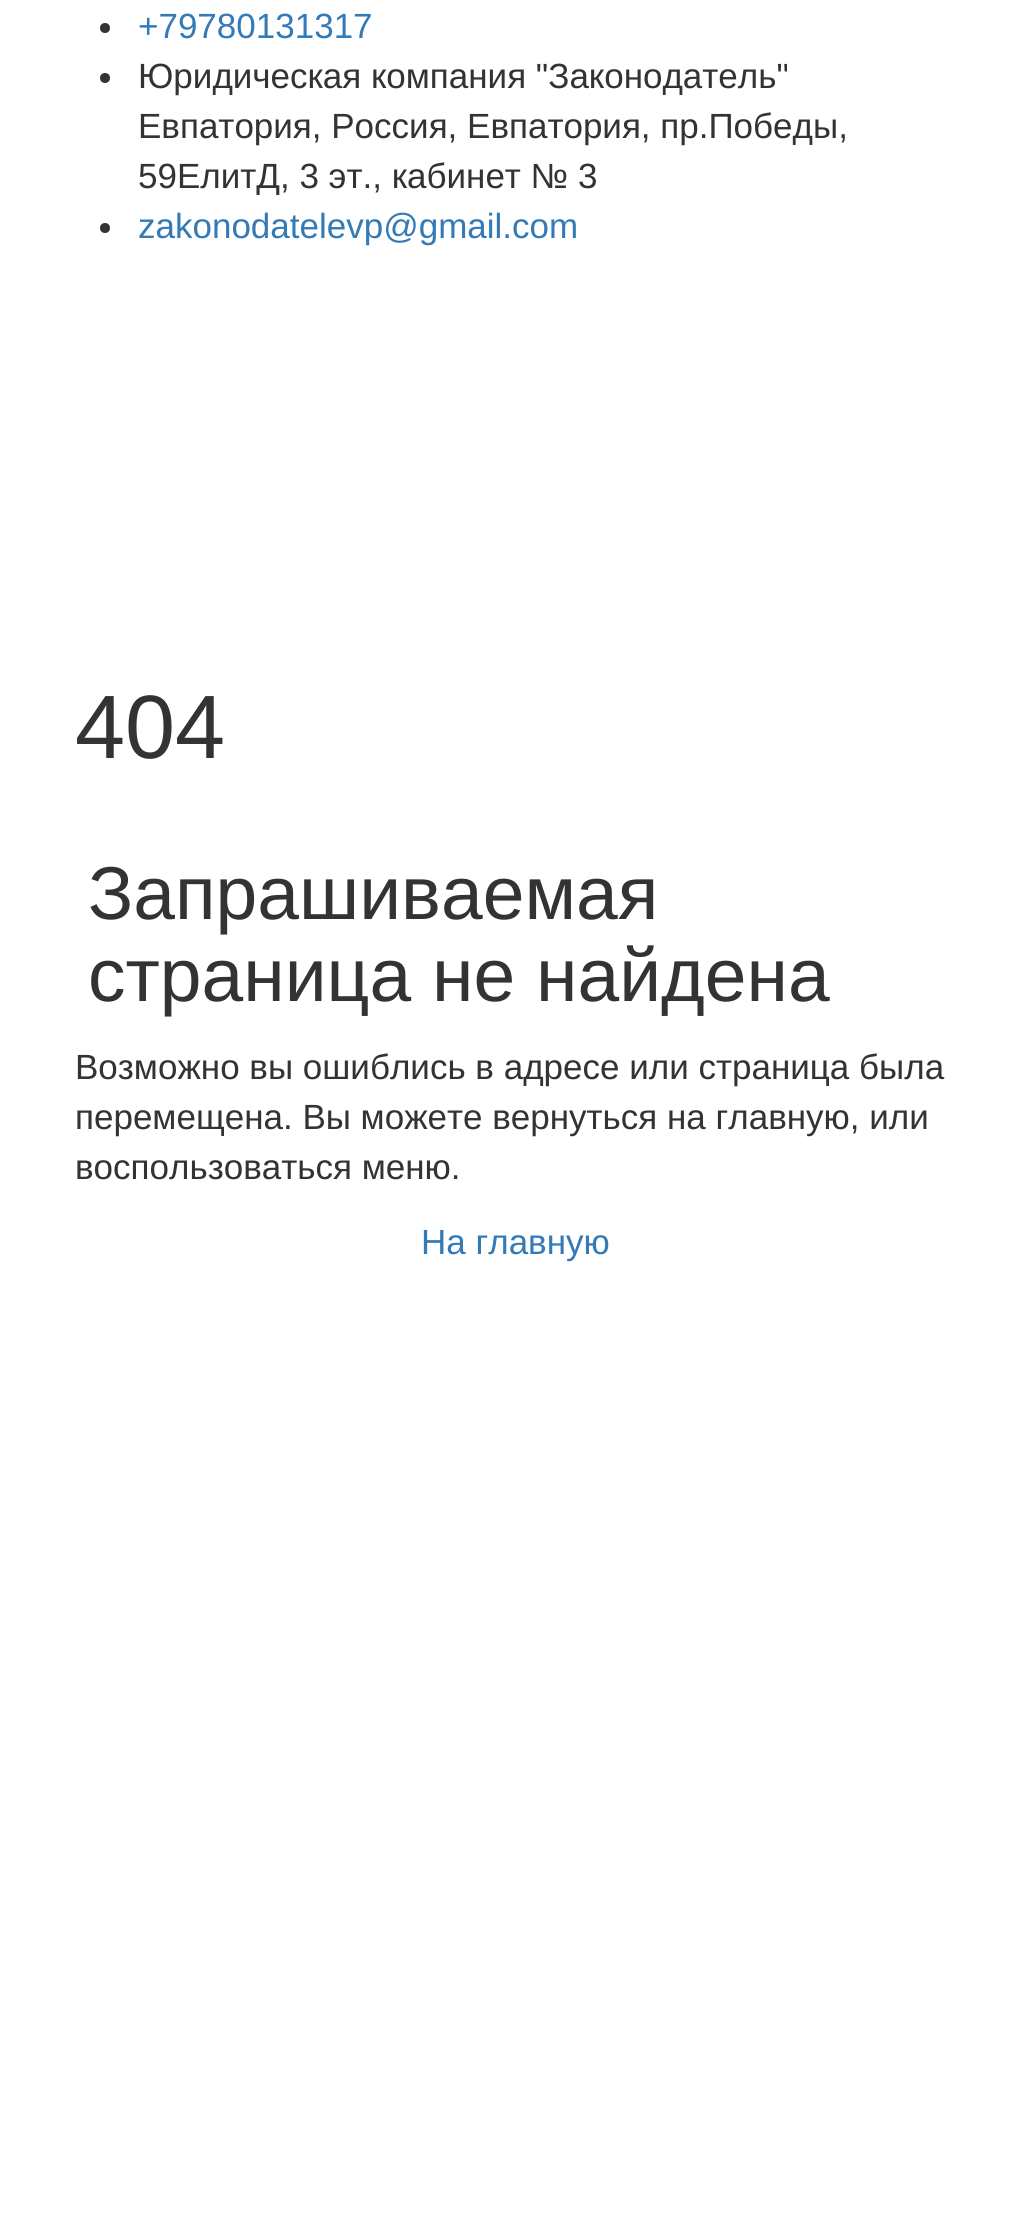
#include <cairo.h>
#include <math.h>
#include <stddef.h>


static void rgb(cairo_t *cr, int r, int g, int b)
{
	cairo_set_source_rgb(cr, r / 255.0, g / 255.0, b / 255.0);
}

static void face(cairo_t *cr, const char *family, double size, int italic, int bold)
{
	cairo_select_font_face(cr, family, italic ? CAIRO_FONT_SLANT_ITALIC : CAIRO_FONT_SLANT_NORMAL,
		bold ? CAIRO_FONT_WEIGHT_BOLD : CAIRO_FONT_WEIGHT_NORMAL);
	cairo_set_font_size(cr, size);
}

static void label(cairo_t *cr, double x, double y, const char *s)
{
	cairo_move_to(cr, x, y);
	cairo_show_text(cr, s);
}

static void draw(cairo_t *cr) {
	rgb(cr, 255, 255, 255);
	cairo_paint(cr);
	rgb(cr, 51, 51, 51);
	cairo_arc(cr, 105, 28, 5, 0, 2 * M_PI);
	cairo_fill(cr);
	face(cr, "Liberation Sans", 35, 0, 0);
	rgb(cr, 51, 122, 183);
	label(cr, 138, 38, "+79780131317");
	rgb(cr, 51, 51, 51);
	cairo_new_path(cr);
	cairo_arc(cr, 105, 78, 5, 0, 2 * M_PI);
	cairo_fill(cr);
	label(cr, 138, 88, "Юридическая компания \"Законодатель\"");
	label(cr, 138, 138, "Евпатория, Россия, Евпатория, пр.Победы,");
	label(cr, 138, 188, "59ЕлитД, 3 эт., кабинет № 3");
	cairo_new_path(cr);
	cairo_arc(cr, 105, 228, 5, 0, 2 * M_PI);
	cairo_fill(cr);
	rgb(cr, 51, 122, 183);
	label(cr, 138, 238, "zakonodatelevp@gmail.com");
	face(cr, "Liberation Sans", 90, 0, 0);
	rgb(cr, 51, 51, 51);
	label(cr, 75, 758, "404");
	face(cr, "Liberation Sans", 75, 0, 0);
	label(cr, 88, 919, "Запрашиваемая");
	label(cr, 88, 1001, "страница не найдена");
	face(cr, "Liberation Sans", 35, 0, 0);
	label(cr, 75, 1079, "Возможно вы ошиблись в адресе или страница была");
	label(cr, 75, 1129, "перемещена. Вы можете вернуться на главную, или");
	label(cr, 75, 1179, "воспользоваться меню.");
	rgb(cr, 51, 122, 183);
	label(cr, 421, 1254, "На главную");
}

int main(void) {
	cairo_surface_t *surface = cairo_image_surface_create(CAIRO_FORMAT_RGB24, 1030, 2240);
	cairo_t *cr = cairo_create(surface);
	cairo_font_options_t *options = cairo_font_options_create();
	cairo_font_options_set_hint_metrics(options, CAIRO_HINT_METRICS_OFF);
	cairo_font_options_set_hint_style(options, CAIRO_HINT_STYLE_NONE);
	cairo_set_font_options(cr, options);
	cairo_set_miter_limit(cr, 4);
	draw(cr);
	cairo_surface_write_to_png(surface, "render.png");
	cairo_font_options_destroy(options);
	cairo_destroy(cr);
	cairo_surface_destroy(surface);
	return 0;
}
